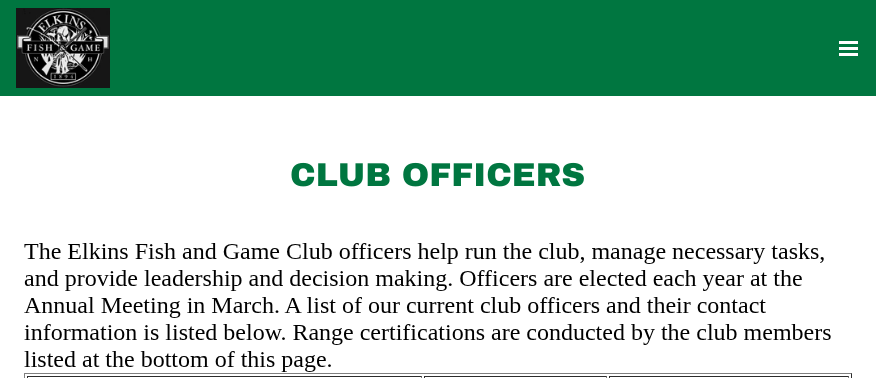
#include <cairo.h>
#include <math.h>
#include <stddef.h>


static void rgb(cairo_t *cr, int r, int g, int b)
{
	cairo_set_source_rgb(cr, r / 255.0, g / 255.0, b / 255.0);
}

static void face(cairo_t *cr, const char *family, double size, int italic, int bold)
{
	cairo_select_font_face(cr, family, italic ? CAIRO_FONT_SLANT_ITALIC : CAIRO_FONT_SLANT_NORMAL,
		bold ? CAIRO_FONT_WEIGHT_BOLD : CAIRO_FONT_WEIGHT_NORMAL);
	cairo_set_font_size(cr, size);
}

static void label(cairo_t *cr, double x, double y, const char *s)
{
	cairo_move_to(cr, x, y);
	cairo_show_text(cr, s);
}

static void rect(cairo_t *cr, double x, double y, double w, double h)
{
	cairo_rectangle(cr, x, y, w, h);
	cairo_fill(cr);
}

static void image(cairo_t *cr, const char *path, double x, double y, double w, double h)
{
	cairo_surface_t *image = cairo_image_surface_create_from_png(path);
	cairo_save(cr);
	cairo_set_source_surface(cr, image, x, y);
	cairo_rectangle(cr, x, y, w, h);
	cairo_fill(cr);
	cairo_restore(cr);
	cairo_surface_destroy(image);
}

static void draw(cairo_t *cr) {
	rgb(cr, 0, 118, 64);
	cairo_paint(cr);
	image(cr, "image0.png", 16, 8, 94, 80);
	rgb(cr, 255, 255, 255);
	rect(cr, 839, 41, 19, 3);
	rect(cr, 839, 47, 19, 3);
	rect(cr, 839, 53, 19, 3);
	rect(cr, 0, 96, 876, 282);
	face(cr, "Archivo Black Black", 33, 0, 0);
	rgb(cr, 0, 118, 64);
	label(cr, 290, 186, "CLUB OFFICERS");
	image(cr, "image1.png", 24, 243, 828, 135);
}

int main(void) {
	cairo_surface_t *surface = cairo_image_surface_create(CAIRO_FORMAT_RGB24, 876, 378);
	cairo_t *cr = cairo_create(surface);
	cairo_font_options_t *options = cairo_font_options_create();
	cairo_font_options_set_hint_metrics(options, CAIRO_HINT_METRICS_OFF);
	cairo_font_options_set_hint_style(options, CAIRO_HINT_STYLE_NONE);
	cairo_set_font_options(cr, options);
	cairo_set_miter_limit(cr, 4);
	draw(cr);
	cairo_surface_write_to_png(surface, "render.png");
	cairo_font_options_destroy(options);
	cairo_destroy(cr);
	cairo_surface_destroy(surface);
	return 0;
}
